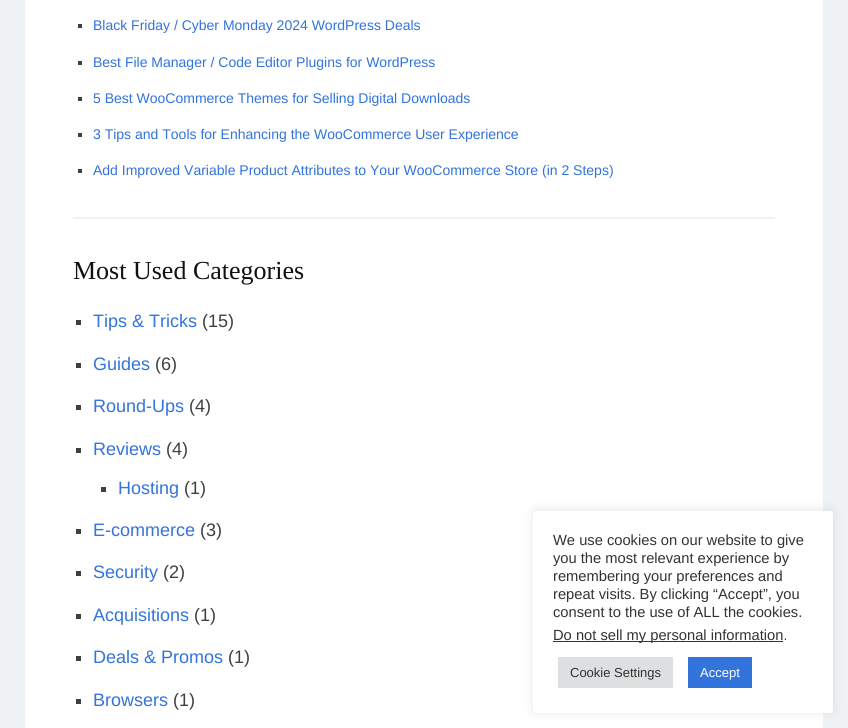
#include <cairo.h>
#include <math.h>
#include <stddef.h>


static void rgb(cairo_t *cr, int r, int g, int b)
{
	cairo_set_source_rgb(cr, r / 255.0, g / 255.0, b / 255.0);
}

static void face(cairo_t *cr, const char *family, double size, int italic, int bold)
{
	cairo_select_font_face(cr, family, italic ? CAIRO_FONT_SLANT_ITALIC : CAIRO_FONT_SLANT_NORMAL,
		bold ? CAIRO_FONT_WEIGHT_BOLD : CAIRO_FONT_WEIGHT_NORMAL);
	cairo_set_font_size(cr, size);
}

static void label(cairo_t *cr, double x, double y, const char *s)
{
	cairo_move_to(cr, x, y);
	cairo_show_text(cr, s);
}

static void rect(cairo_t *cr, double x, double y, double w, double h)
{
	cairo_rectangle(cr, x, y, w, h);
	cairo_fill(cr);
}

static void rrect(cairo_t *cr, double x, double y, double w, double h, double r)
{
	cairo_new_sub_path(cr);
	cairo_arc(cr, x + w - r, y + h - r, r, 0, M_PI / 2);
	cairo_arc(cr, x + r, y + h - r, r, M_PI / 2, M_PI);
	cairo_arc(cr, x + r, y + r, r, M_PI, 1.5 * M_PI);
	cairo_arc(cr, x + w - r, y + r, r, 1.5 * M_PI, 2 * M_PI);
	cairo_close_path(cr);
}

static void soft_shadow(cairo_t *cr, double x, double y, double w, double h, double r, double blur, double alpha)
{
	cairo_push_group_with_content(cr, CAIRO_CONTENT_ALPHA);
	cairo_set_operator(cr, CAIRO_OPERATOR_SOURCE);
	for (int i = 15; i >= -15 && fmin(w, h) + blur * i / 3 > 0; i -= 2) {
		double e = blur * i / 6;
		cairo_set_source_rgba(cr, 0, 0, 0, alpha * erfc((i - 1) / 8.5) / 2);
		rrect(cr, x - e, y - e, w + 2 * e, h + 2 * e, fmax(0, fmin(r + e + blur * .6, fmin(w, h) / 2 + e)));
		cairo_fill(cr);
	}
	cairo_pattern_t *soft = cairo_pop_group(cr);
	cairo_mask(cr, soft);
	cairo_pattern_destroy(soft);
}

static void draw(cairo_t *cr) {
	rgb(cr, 238, 242, 245);
	cairo_paint(cr);
	rgb(cr, 255, 255, 255);
	rect(cr, 25, 0, 798, 728);
	rgb(cr, 60, 65, 68);
	rect(cr, 78, 24, 4, 4);
	face(cr, "Arimo", 14, 0, 0);
	rgb(cr, 50, 115, 220);
	label(cr, 93, 30, "Black Friday / Cyber Monday 2024 WordPress Deals");
	rgb(cr, 60, 65, 68);
	rect(cr, 78, 61, 4, 4);
	rgb(cr, 50, 115, 220);
	label(cr, 93, 67, "Best File Manager / Code Editor Plugins for WordPress");
	rgb(cr, 60, 65, 68);
	rect(cr, 78, 97, 4, 4);
	rgb(cr, 50, 115, 220);
	label(cr, 93, 103, "5 Best WooCommerce Themes for Selling Digital Downloads");
	rgb(cr, 60, 65, 68);
	rect(cr, 78, 133, 4, 4);
	rgb(cr, 50, 115, 220);
	label(cr, 93, 139, "3 Tips and Tools for Enhancing the WooCommerce User Experience");
	rgb(cr, 60, 65, 68);
	rect(cr, 78, 169, 4, 4);
	rgb(cr, 50, 115, 220);
	label(cr, 93, 175, "Add Improved Variable Product Attributes to Your WooCommerce Store (in 2 Steps)");
	rgb(cr, 238, 242, 245);
	rect(cr, 73, 217, 702, 2);
	face(cr, "Liberation Serif", 26, 0, 0);
	rgb(cr, 17, 17, 17);
	label(cr, 73, 279, "Most Used Categories");
	rgb(cr, 60, 65, 68);
	rect(cr, 76, 320, 5, 5);
	face(cr, "Arimo", 18, 0, 0);
	rgb(cr, 50, 115, 220);
	label(cr, 93, 327, "Tips & Tricks");
	rgb(cr, 60, 65, 68);
	label(cr, 202, 327, "(15)");
	rect(cr, 76, 363, 5, 5);
	rgb(cr, 50, 115, 220);
	label(cr, 93, 370, "Guides");
	rgb(cr, 60, 65, 68);
	label(cr, 155, 370, "(6)");
	rect(cr, 76, 405, 5, 5);
	rgb(cr, 50, 115, 220);
	label(cr, 93, 412, "Round-Ups");
	rgb(cr, 60, 65, 68);
	label(cr, 189, 412, "(4)");
	rect(cr, 76, 448, 5, 5);
	rgb(cr, 50, 115, 220);
	label(cr, 93, 455, "Reviews");
	rgb(cr, 60, 65, 68);
	label(cr, 166, 455, "(4)");
	rect(cr, 101, 487, 5, 5);
	rgb(cr, 50, 115, 220);
	label(cr, 118, 494, "Hosting");
	rgb(cr, 60, 65, 68);
	label(cr, 184, 494, "(1)");
	rect(cr, 76, 529, 5, 5);
	rgb(cr, 50, 115, 220);
	label(cr, 93, 536, "E-commerce");
	rgb(cr, 60, 65, 68);
	label(cr, 200, 536, "(3)");
	rect(cr, 76, 571, 5, 5);
	rgb(cr, 50, 115, 220);
	label(cr, 93, 578, "Security");
	rgb(cr, 60, 65, 68);
	label(cr, 163, 578, "(2)");
	rect(cr, 76, 614, 5, 5);
	rgb(cr, 50, 115, 220);
	label(cr, 93, 621, "Acquisitions");
	rgb(cr, 60, 65, 68);
	label(cr, 194, 621, "(1)");
	rect(cr, 76, 656, 5, 5);
	rgb(cr, 50, 115, 220);
	label(cr, 93, 663, "Deals & Promos");
	rgb(cr, 60, 65, 68);
	label(cr, 228, 663, "(1)");
	rect(cr, 76, 699, 5, 5);
	rgb(cr, 50, 115, 220);
	label(cr, 93, 706, "Browsers");
	rgb(cr, 60, 65, 68);
	label(cr, 173, 706, "(1)");
	rgb(cr, 172, 171, 171);
	soft_shadow(cr, 533, 510, 300, 202, 3, 5, 0.3);
	rgb(cr, 255, 255, 255);
	rrect(cr, 533, 511, 300, 202, 3);
	cairo_fill(cr);
	face(cr, "Arimo", 14.7, 0, 0);
	rgb(cr, 51, 51, 51);
	label(cr, 553, 545, "We use cookies on our website to give");
	label(cr, 553, 563, "you the most relevant experience by");
	label(cr, 553, 581, "remembering your preferences and");
	label(cr, 553, 599, "repeat visits. By clicking “Accept”, you");
	label(cr, 553, 617, "consent to the use of ALL the cookies.");
	rect(cr, 553, 641, 230, 1);
	label(cr, 553, 640, "Do not sell my personal information.");
	rgb(cr, 222, 223, 224);
	rect(cr, 558, 657, 115, 31);
	face(cr, "Arimo", 13, 0, 0);
	rgb(cr, 51, 51, 51);
	label(cr, 570, 677, "Cookie Settings");
	rgb(cr, 50, 115, 220);
	rect(cr, 688, 657, 64, 31);
	rgb(cr, 255, 255, 255);
	label(cr, 700, 677, "Accept");
}

int main(void) {
	cairo_surface_t *surface = cairo_image_surface_create(CAIRO_FORMAT_RGB24, 848, 728);
	cairo_t *cr = cairo_create(surface);
	cairo_font_options_t *options = cairo_font_options_create();
	cairo_font_options_set_hint_metrics(options, CAIRO_HINT_METRICS_OFF);
	cairo_font_options_set_hint_style(options, CAIRO_HINT_STYLE_NONE);
	cairo_set_font_options(cr, options);
	cairo_set_miter_limit(cr, 4);
	draw(cr);
	cairo_surface_write_to_png(surface, "render.png");
	cairo_font_options_destroy(options);
	cairo_destroy(cr);
	cairo_surface_destroy(surface);
	return 0;
}
